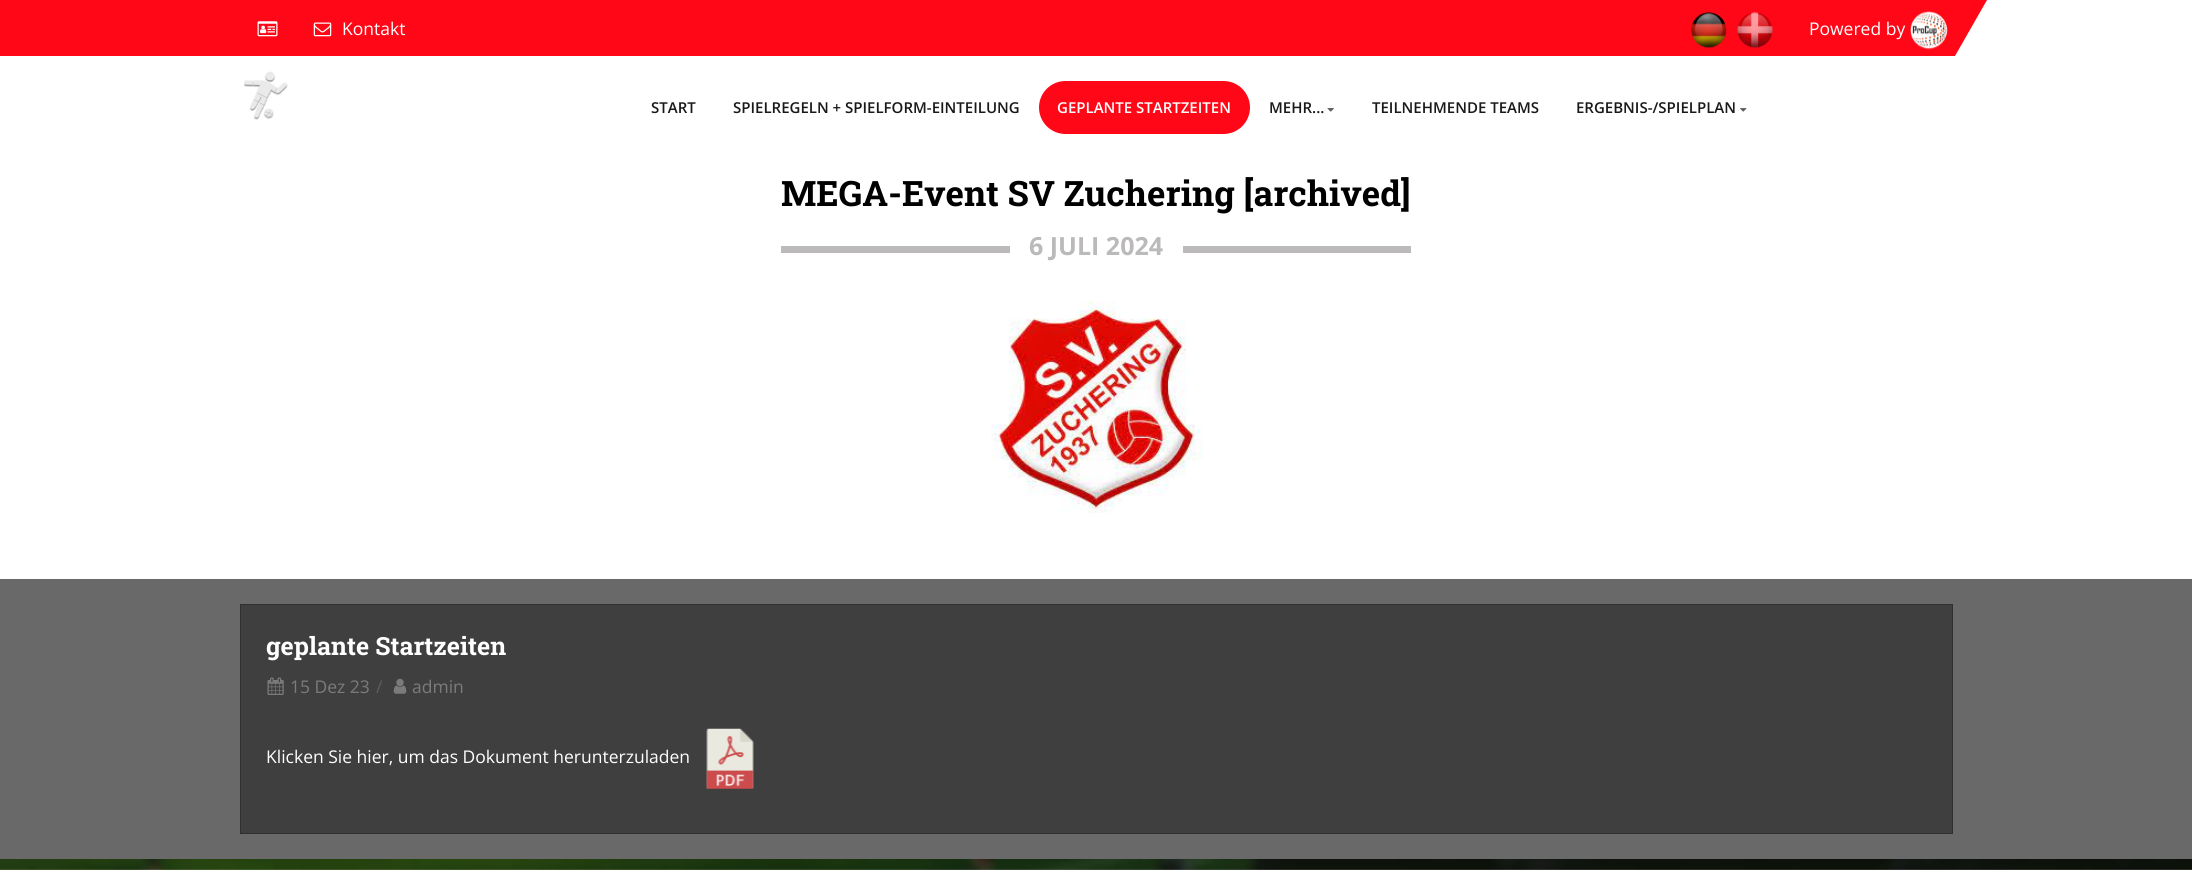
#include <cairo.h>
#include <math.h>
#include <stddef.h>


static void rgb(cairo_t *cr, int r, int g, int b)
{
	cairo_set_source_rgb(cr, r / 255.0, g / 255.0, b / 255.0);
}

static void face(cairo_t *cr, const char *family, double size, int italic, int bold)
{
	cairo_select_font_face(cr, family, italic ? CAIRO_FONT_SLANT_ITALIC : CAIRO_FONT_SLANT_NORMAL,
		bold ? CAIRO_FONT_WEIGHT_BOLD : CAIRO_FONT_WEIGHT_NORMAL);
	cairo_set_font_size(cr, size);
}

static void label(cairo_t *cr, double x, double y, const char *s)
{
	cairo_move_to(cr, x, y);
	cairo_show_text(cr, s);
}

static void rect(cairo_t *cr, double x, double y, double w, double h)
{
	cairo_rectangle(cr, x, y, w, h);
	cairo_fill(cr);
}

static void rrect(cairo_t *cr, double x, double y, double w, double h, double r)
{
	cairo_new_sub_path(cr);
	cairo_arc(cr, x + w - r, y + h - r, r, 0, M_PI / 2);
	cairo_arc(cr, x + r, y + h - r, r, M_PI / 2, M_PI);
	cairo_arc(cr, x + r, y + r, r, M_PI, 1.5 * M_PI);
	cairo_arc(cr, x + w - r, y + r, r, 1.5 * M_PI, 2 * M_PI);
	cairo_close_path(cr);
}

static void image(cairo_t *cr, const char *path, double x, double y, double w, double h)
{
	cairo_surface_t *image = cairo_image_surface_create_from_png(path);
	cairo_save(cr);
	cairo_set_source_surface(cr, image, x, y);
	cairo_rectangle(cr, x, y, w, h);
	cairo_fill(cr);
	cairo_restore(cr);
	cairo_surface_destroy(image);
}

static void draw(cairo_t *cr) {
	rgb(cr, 255, 255, 255);
	cairo_paint(cr);
	rgb(cr, 255, 7, 22);
	cairo_new_path(cr);
	cairo_move_to(cr, -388, 0);
	cairo_line_to(cr, 1987, 0);
	cairo_line_to(cr, 1955, 56);
	cairo_line_to(cr, -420, 56);
	cairo_close_path(cr);
	cairo_fill(cr);
	image(cr, "image0.png", 257, 21, 21, 16);
	image(cr, "image1.png", 313, 22, 19, 15);
	face(cr, "Open Sans", 17.5, 0, 0);
	rgb(cr, 255, 255, 255);
	label(cr, 342, 35, "Kontakt");
	image(cr, "image2.png", 1691, 12, 36, 37);
	image(cr, "image3.png", 1737, 12, 36, 37);
	label(cr, 1809, 35, "Powered by");
	image(cr, "image4.png", 1910, 11, 38, 39);
	image(cr, "image5.png", 244, 71, 44, 49);
	face(cr, "Open Sans SemiBold", 15, 0, 0);
	rgb(cr, 26, 25, 25);
	label(cr, 651, 113, "START");
	label(cr, 733, 113, "SPIELREGELN + SPIELFORM-EINTEILUNG");
	rgb(cr, 255, 7, 22);
	rrect(cr, 1039, 81, 211, 53, 26.5);
	cairo_fill(cr);
	rgb(cr, 255, 255, 255);
	label(cr, 1057, 113, "GEPLANTE STARTZEITEN");
	rgb(cr, 26, 25, 25);
	label(cr, 1269, 113, "MEHR...");
	image(cr, "image6.png", 1327, 108, 7, 4);
	label(cr, 1372, 113, "TEILNEHMENDE TEAMS");
	label(cr, 1576, 113, "ERGEBNIS-/SPIELPLAN");
	image(cr, "image7.png", 1740, 108, 7, 4);
	face(cr, "Roboto Slab", 35, 0, 1);
	rgb(cr, 0, 0, 0);
	label(cr, 781, 206, "MEGA-Event SV Zuchering [archived]");
	rgb(cr, 187, 185, 185);
	rect(cr, 781, 246, 229, 7);
	face(cr, "Open Sans", 25, 0, 1);
	label(cr, 1029, 255, "6 JULI 2024");
	rect(cr, 1183, 246, 228, 7);
	image(cr, "image8.png", 991, 301, 213, 212);
	rgb(cr, 105, 105, 105);
	rect(cr, 0, 579, 2192, 280);
	rgb(cr, 63, 63, 63);
	cairo_rectangle(cr, 240.5, 604.5, 1712, 229);
	cairo_fill_preserve(cr);
	rgb(cr, 48, 48, 48);
	cairo_set_line_width(cr, 1);
	cairo_stroke(cr);
	face(cr, "Roboto Slab", 25, 0, 1);
	rgb(cr, 255, 255, 255);
	label(cr, 266, 655, "geplante Startzeiten");
	image(cr, "image9.png", 267, 677, 17, 18);
	face(cr, "Open Sans", 17.5, 0, 0);
	rgb(cr, 123, 123, 123);
	label(cr, 290, 693, "15 Dez 23");
	rgb(cr, 93, 93, 93);
	label(cr, 376, 693, "/");
	image(cr, "image10.png", 393, 678, 14, 16);
	rgb(cr, 123, 123, 123);
	label(cr, 412, 693, "admin");
	rgb(cr, 255, 255, 255);
	label(cr, 266, 763, "Klicken Sie hier, um das Dokument herunterzuladen");
	image(cr, "image11.png", 706, 728, 48, 61);
	image(cr, "image12.png", 0, 859, 2192, 11);
}

int main(void) {
	cairo_surface_t *surface = cairo_image_surface_create(CAIRO_FORMAT_RGB24, 2192, 870);
	cairo_t *cr = cairo_create(surface);
	cairo_font_options_t *options = cairo_font_options_create();
	cairo_font_options_set_hint_metrics(options, CAIRO_HINT_METRICS_OFF);
	cairo_font_options_set_hint_style(options, CAIRO_HINT_STYLE_NONE);
	cairo_set_font_options(cr, options);
	cairo_set_miter_limit(cr, 4);
	draw(cr);
	cairo_surface_write_to_png(surface, "render.png");
	cairo_font_options_destroy(options);
	cairo_destroy(cr);
	cairo_surface_destroy(surface);
	return 0;
}
